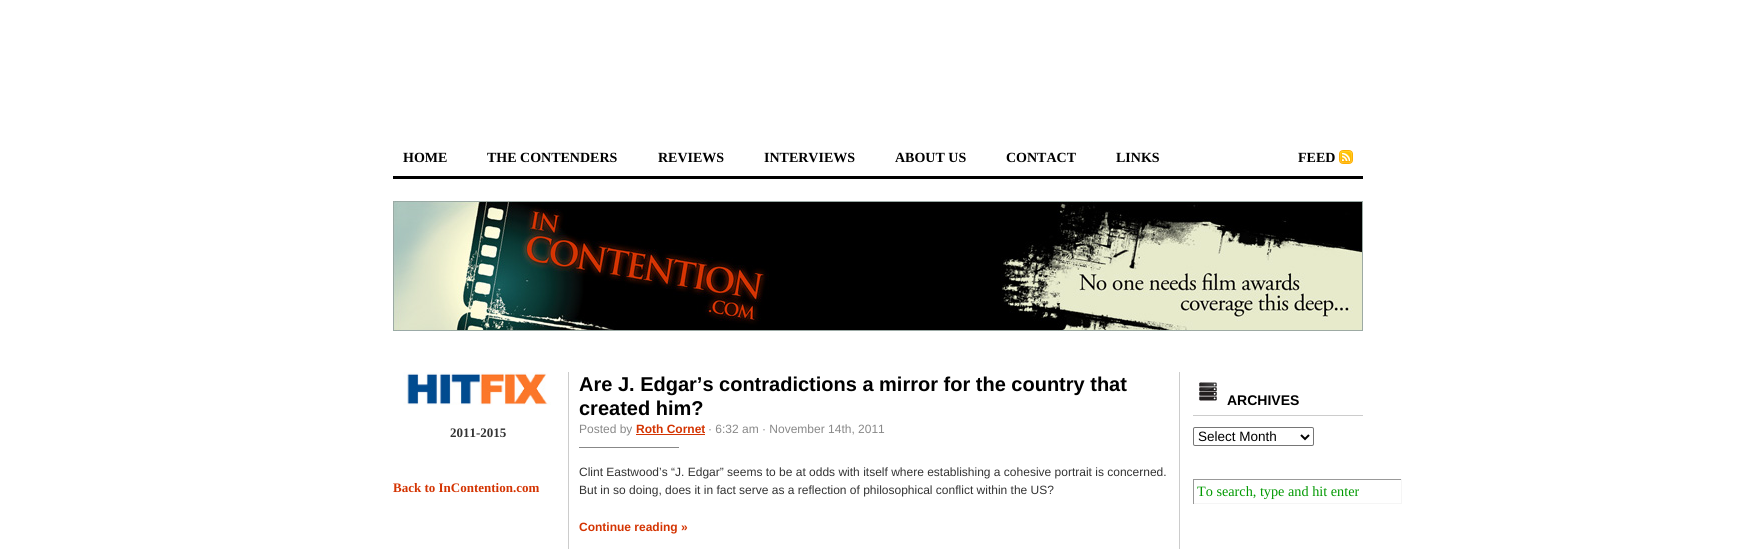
#include <cairo.h>
#include <math.h>
#include <stddef.h>


static void rgb(cairo_t *cr, int r, int g, int b)
{
	cairo_set_source_rgb(cr, r / 255.0, g / 255.0, b / 255.0);
}

static void face(cairo_t *cr, const char *family, double size, int italic, int bold)
{
	cairo_select_font_face(cr, family, italic ? CAIRO_FONT_SLANT_ITALIC : CAIRO_FONT_SLANT_NORMAL,
		bold ? CAIRO_FONT_WEIGHT_BOLD : CAIRO_FONT_WEIGHT_NORMAL);
	cairo_set_font_size(cr, size);
}

static void label(cairo_t *cr, double x, double y, const char *s)
{
	cairo_move_to(cr, x, y);
	cairo_show_text(cr, s);
}

static void rect(cairo_t *cr, double x, double y, double w, double h)
{
	cairo_rectangle(cr, x, y, w, h);
	cairo_fill(cr);
}

static void rrect(cairo_t *cr, double x, double y, double w, double h, double r)
{
	cairo_new_sub_path(cr);
	cairo_arc(cr, x + w - r, y + h - r, r, 0, M_PI / 2);
	cairo_arc(cr, x + r, y + h - r, r, M_PI / 2, M_PI);
	cairo_arc(cr, x + r, y + r, r, M_PI, 1.5 * M_PI);
	cairo_arc(cr, x + w - r, y + r, r, 1.5 * M_PI, 2 * M_PI);
	cairo_close_path(cr);
}

static void image(cairo_t *cr, const char *path, double x, double y, double w, double h)
{
	cairo_surface_t *image = cairo_image_surface_create_from_png(path);
	cairo_save(cr);
	cairo_set_source_surface(cr, image, x, y);
	cairo_rectangle(cr, x, y, w, h);
	cairo_fill(cr);
	cairo_restore(cr);
	cairo_surface_destroy(image);
}

static void draw(cairo_t *cr) {
	rgb(cr, 255, 255, 255);
	cairo_paint(cr);
	rgb(cr, 0, 0, 0);
	rect(cr, 393, 176, 970, 3);
	face(cr, "Liberation Serif", 14, 0, 1);
	label(cr, 403, 162, "HOME");
	label(cr, 487, 162, "THE CONTENDERS");
	label(cr, 658, 162, "REVIEWS");
	label(cr, 764, 162, "INTERVIEWS");
	label(cr, 895, 162, "ABOUT US");
	label(cr, 1006, 162, "CONTACT");
	label(cr, 1116, 162, "LINKS");
	label(cr, 1298, 162, "FEED");
	image(cr, "image0.png", 1339, 150, 14, 14);
	image(cr, "image1.png", 393, 201, 970, 130);
	image(cr, "image2.png", 403, 372, 148, 33);
	face(cr, "Liberation Serif", 13, 0, 1);
	rgb(cr, 51, 51, 51);
	label(cr, 450, 437, "2011-2015");
	rgb(cr, 212, 52, 2);
	label(cr, 393, 492, "Back to InContention.com");
	rgb(cr, 204, 204, 204);
	rect(cr, 1179, 372, 1, 177);
	rect(cr, 568, 372, 1, 177);
	face(cr, "Liberation Sans", 20, 0, 1);
	rgb(cr, 0, 0, 0);
	label(cr, 579, 391, "Are J. Edgar’s contradictions a mirror for the country that");
	label(cr, 579, 415, "created him?");
	rgb(cr, 136, 136, 136);
	rect(cr, 579, 447, 100, 1);
	face(cr, "Liberation Sans", 12, 0, 0);
	label(cr, 579, 433, "Posted by");
	face(cr, "Liberation Sans", 12, 0, 1);
	rgb(cr, 212, 52, 2);
	label(cr, 636, 433, "Roth Cornet");
	rect(cr, 636, 434, 69, 1);
	face(cr, "Liberation Sans", 12, 0, 0);
	rgb(cr, 136, 136, 136);
	label(cr, 708, 433, "· 6:32 am · November 14th, 2011");
	rgb(cr, 51, 51, 51);
	label(cr, 579, 476, "Clint Eastwood’s “J. Edgar” seems to be at odds with itself where establishing a cohesive portrait is concerned.");
	label(cr, 579, 494, "But in so doing, does it in fact serve as a reflection of philosophical conflict within the US?");
	face(cr, "Liberation Sans", 12, 0, 1);
	rgb(cr, 212, 52, 2);
	label(cr, 579, 531, "Continue reading »");
	rgb(cr, 204, 204, 204);
	rect(cr, 1193, 415, 170, 1);
	image(cr, "image3.png", 1198, 380, 20, 21);
	face(cr, "Liberation Sans", 14, 0, 1);
	rgb(cr, 0, 0, 0);
	label(cr, 1227, 405, "ARCHIVES");
	rrect(cr, 1193.5, 427.5, 120, 18, 1.5);
	rgb(cr, 118, 118, 118);
	cairo_set_line_width(cr, 1);
	cairo_stroke(cr);
	cairo_new_path(cr);
	cairo_move_to(cr, 1301, 435);
	cairo_line_to(cr, 1305, 439);
	cairo_line_to(cr, 1309, 435);
	rgb(cr, 0, 0, 0);
	cairo_set_line_width(cr, 2);
	cairo_stroke(cr);
	face(cr, "Liberation Sans", 13.5, 0, 0);
	label(cr, 1198, 441, "Select Month");
	rgb(cr, 153, 153, 153);
	rect(cr, 1193, 479, 209, 1);
	rgb(cr, 245, 245, 245);
	rect(cr, 1401, 479, 1, 25);
	rect(cr, 1193, 503, 209, 1);
	rgb(cr, 153, 153, 153);
	rect(cr, 1193, 479, 1, 25);
	face(cr, "Liberation Serif", 14.25, 0, 0);
	rgb(cr, 0, 153, 0);
	label(cr, 1197, 496, "To search, type and hit enter");
}

int main(void) {
	cairo_surface_t *surface = cairo_image_surface_create(CAIRO_FORMAT_RGB24, 1756, 549);
	cairo_t *cr = cairo_create(surface);
	cairo_font_options_t *options = cairo_font_options_create();
	cairo_font_options_set_hint_metrics(options, CAIRO_HINT_METRICS_OFF);
	cairo_font_options_set_hint_style(options, CAIRO_HINT_STYLE_NONE);
	cairo_set_font_options(cr, options);
	cairo_set_miter_limit(cr, 4);
	draw(cr);
	cairo_surface_write_to_png(surface, "render.png");
	cairo_font_options_destroy(options);
	cairo_destroy(cr);
	cairo_surface_destroy(surface);
	return 0;
}
